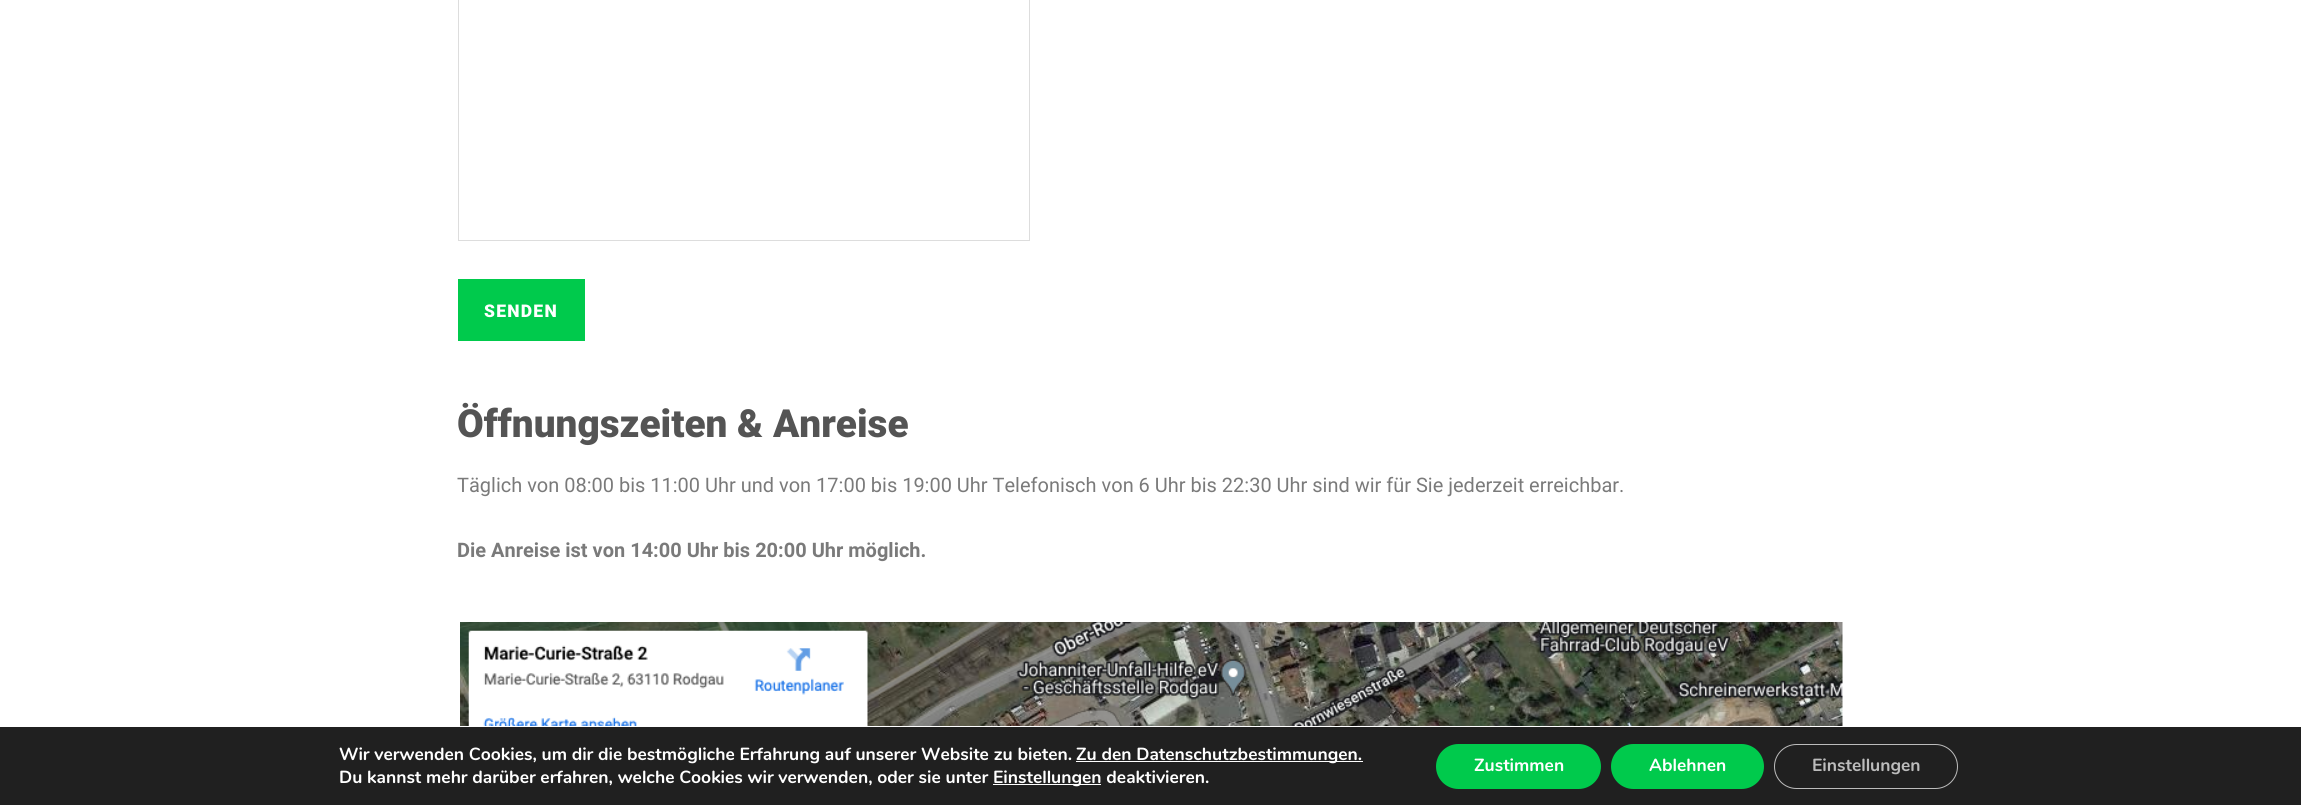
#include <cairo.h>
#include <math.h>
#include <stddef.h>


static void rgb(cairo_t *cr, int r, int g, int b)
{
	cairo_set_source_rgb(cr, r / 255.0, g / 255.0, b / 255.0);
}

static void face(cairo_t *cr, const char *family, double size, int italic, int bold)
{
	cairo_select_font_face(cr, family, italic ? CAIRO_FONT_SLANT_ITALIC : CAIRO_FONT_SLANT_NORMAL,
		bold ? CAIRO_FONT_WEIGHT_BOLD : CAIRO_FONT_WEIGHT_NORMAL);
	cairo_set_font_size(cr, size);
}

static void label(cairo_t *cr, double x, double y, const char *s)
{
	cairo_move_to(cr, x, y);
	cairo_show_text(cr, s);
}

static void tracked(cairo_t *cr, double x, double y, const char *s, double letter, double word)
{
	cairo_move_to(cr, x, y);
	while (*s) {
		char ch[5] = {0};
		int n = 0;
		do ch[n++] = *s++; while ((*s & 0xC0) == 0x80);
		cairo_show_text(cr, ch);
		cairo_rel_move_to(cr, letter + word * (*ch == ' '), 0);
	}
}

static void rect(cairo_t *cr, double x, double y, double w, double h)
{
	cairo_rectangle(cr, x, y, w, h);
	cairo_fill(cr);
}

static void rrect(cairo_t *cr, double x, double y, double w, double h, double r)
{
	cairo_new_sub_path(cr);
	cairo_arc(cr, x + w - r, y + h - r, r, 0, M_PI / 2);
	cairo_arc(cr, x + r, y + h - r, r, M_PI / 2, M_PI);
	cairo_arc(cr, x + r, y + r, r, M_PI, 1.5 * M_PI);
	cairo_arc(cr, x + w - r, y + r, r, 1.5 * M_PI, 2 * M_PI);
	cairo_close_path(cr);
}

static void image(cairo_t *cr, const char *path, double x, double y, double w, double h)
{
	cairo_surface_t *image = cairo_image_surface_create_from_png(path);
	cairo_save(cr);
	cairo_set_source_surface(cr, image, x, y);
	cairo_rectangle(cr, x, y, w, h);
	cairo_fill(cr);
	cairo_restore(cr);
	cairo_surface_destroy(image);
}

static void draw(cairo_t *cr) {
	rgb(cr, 255, 255, 255);
	cairo_paint(cr);
	cairo_rectangle(cr, 458.5, -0.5, 571, 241);
	rgb(cr, 221, 221, 221);
	cairo_set_line_width(cr, 1);
	cairo_stroke(cr);
	rgb(cr, 0, 202, 76);
	rect(cr, 458, 279, 127, 62);
	face(cr, "Roboto Black", 17.5, 0, 0);
	rgb(cr, 255, 255, 255);
	tracked(cr, 484, 317, "SENDEN", 1.25, 0);
	face(cr, "Roboto Black", 38.75, 0, 0);
	rgb(cr, 84, 84, 84);
	label(cr, 457, 437, "Öffnungszeiten & Anreise");
	face(cr, "Roboto", 20, 0, 0);
	rgb(cr, 122, 122, 122);
	label(cr, 457, 492, "Täglich von 08:00 bis 11:00 Uhr und von 17:00 bis 19:00 Uhr Telefonisch von 6 Uhr bis 22:30 Uhr sind wir für Sie jederzeit erreichbar.");
	face(cr, "Roboto", 20, 0, 1);
	label(cr, 457, 557, "Die Anreise ist von 14:00 Uhr bis 20:00 Uhr möglich.");
	image(cr, "image0.png", 460, 622, 1383, 104);
	rgb(cr, 32, 32, 32);
	rect(cr, 0, 727, 2301, 78);
	face(cr, "Nunito", 17.5, 0, 1);
	rgb(cr, 255, 255, 255);
	label(cr, 339, 760, "Wir verwenden Cookies, um dir die bestmögliche Erfahrung auf unserer Website zu bieten.");
	rect(cr, 1076, 761, 287, 1);
	label(cr, 1076, 760, "Zu den Datenschutzbestimmungen.");
	label(cr, 339, 783, "Du kannst mehr darüber erfahren, welche Cookies wir verwenden, oder sie unter");
	rect(cr, 993, 784, 108, 1);
	label(cr, 993, 783, "Einstellungen deaktivieren.");
	rgb(cr, 0, 202, 76);
	rrect(cr, 1436, 744, 165, 45, 22.5);
	cairo_fill(cr);
	rgb(cr, 255, 255, 255);
	label(cr, 1474, 771, "Zustimmen");
	rgb(cr, 0, 202, 76);
	rrect(cr, 1611, 744, 153, 45, 22.5);
	cairo_fill(cr);
	rgb(cr, 255, 255, 255);
	label(cr, 1649, 771, "Ablehnen");
	rrect(cr, 1774.5, 744.5, 183, 44, 22);
	rgb(cr, 188, 188, 188);
	cairo_stroke(cr);
	label(cr, 1812, 771, "Einstellungen");
}

int main(void) {
	cairo_surface_t *surface = cairo_image_surface_create(CAIRO_FORMAT_RGB24, 2301, 805);
	cairo_t *cr = cairo_create(surface);
	cairo_font_options_t *options = cairo_font_options_create();
	cairo_font_options_set_hint_metrics(options, CAIRO_HINT_METRICS_OFF);
	cairo_font_options_set_hint_style(options, CAIRO_HINT_STYLE_NONE);
	cairo_set_font_options(cr, options);
	cairo_set_miter_limit(cr, 4);
	draw(cr);
	cairo_surface_write_to_png(surface, "render.png");
	cairo_font_options_destroy(options);
	cairo_destroy(cr);
	cairo_surface_destroy(surface);
	return 0;
}
